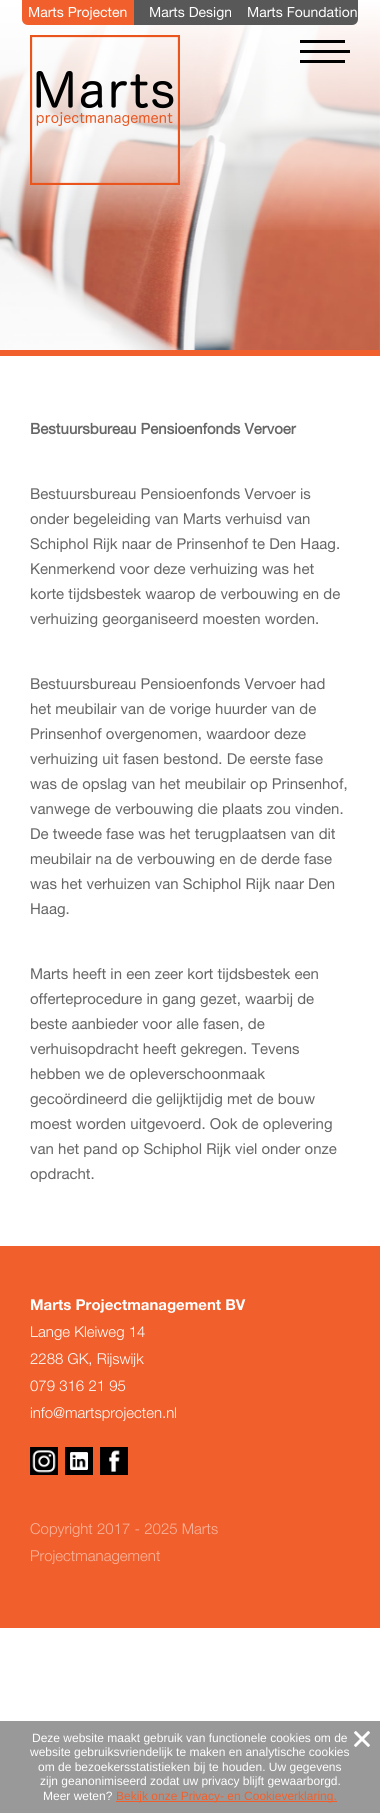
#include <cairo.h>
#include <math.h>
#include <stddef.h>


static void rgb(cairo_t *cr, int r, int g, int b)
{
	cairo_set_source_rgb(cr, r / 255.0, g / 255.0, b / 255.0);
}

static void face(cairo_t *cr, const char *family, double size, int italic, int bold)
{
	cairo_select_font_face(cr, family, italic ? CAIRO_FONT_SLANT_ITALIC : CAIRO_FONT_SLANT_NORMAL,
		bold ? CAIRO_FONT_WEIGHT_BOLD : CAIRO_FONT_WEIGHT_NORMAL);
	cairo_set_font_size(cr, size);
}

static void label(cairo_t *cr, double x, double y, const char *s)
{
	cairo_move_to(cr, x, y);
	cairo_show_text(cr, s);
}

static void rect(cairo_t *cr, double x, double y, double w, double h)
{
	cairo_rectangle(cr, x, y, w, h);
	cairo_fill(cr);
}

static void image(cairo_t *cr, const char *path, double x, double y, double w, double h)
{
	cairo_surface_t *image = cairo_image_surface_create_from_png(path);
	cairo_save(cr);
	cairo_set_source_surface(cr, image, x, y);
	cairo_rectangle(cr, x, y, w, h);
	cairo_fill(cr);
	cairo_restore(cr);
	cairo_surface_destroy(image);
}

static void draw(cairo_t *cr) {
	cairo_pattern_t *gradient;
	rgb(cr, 255, 255, 255);
	cairo_paint(cr);
	image(cr, "image0.png", 0, 2, 380, 348);
	gradient = cairo_pattern_create_linear(190, 233, 190, 0);
	cairo_pattern_add_color_stop_rgba(gradient, 0, 1, 1, 1, 0);
	cairo_pattern_add_color_stop_rgba(gradient, 0.3, 1, 1, 1, 0.6);
	cairo_pattern_add_color_stop_rgba(gradient, 1, 1, 1, 1, 1);
	cairo_set_source(cr, gradient);
	cairo_pattern_destroy(gradient);
	rect(cr, 0, 2, 380, 228);
	rgb(cr, 241, 96, 44);
	cairo_new_path(cr);
	cairo_move_to(cr, 22, 0);
	cairo_line_to(cr, 134, 0);
	cairo_line_to(cr, 134, 25);
	cairo_line_to(cr, 28, 25);
	cairo_curve_to(cr, 24.5, 25, 22, 22.5, 22, 19);
	cairo_close_path(cr);
	cairo_fill(cr);
	face(cr, "Helvetica Neue", 14, 0, 0);
	rgb(cr, 255, 255, 255);
	label(cr, 28, 17, "Marts Projecten");
	rgb(cr, 88, 88, 88);
	rect(cr, 134, 0, 112, 25);
	rgb(cr, 255, 255, 255);
	label(cr, 149, 17, "Marts Design");
	rgb(cr, 88, 88, 88);
	cairo_new_path(cr);
	cairo_move_to(cr, 246, 0);
	cairo_line_to(cr, 358, 0);
	cairo_line_to(cr, 358, 19);
	cairo_curve_to(cr, 358, 22.5, 355.5, 25, 352, 25);
	cairo_line_to(cr, 246, 25);
	cairo_close_path(cr);
	cairo_fill(cr);
	rgb(cr, 255, 255, 255);
	label(cr, 247, 17, "Marts Foundation");
	rgb(cr, 241, 96, 44);
	rect(cr, 0, 350, 380, 6);
	image(cr, "image1.png", 30, 35, 150, 150);
	rgb(cr, 0, 0, 0);
	rect(cr, 300, 50, 50, 3);
	rect(cr, 300, 40, 45, 3);
	rect(cr, 300, 60, 45, 3);
	face(cr, "Helvetica Neue", 15, 0, 1);
	rgb(cr, 102, 102, 102);
	label(cr, 30, 434, "Bestuursbureau Pensioenfonds Vervoer");
	face(cr, "Helvetica Neue", 15, 0, 0);
	label(cr, 30, 499, "Bestuursbureau Pensioenfonds Vervoer is");
	label(cr, 30, 524, "onder begeleiding van Marts verhuisd van");
	label(cr, 30, 549, "Schiphol Rijk naar de Prinsenhof te Den Haag.");
	label(cr, 30, 574, "Kenmerkend voor deze verhuizing was het");
	label(cr, 30, 599, "korte tijdsbestek waarop de verbouwing en de");
	label(cr, 30, 624, "verhuizing georganiseerd moesten worden.");
	label(cr, 30, 689, "Bestuursbureau Pensioenfonds Vervoer had");
	label(cr, 30, 714, "het meubilair van de vorige huurder van de");
	label(cr, 30, 739, "Prinsenhof overgenomen, waardoor deze");
	label(cr, 30, 764, "verhuizing uit fasen bestond. De eerste fase");
	label(cr, 30, 789, "was de opslag van het meubilair op Prinsenhof,");
	label(cr, 30, 814, "vanwege de verbouwing die plaats zou vinden.");
	label(cr, 30, 839, "De tweede fase was het terugplaatsen van dit");
	label(cr, 30, 864, "meubilair na de verbouwing en de derde fase");
	label(cr, 30, 889, "was het verhuizen van Schiphol Rijk naar Den");
	label(cr, 30, 914, "Haag.");
	label(cr, 30, 979, "Marts heeft in een zeer kort tijdsbestek een");
	label(cr, 30, 1004, "offerteprocedure in gang gezet, waarbij de");
	label(cr, 30, 1029, "beste aanbieder voor alle fasen, de");
	label(cr, 30, 1054, "verhuisopdracht heeft gekregen. Tevens");
	label(cr, 30, 1079, "hebben we de opleverschoonmaak");
	label(cr, 30, 1104, "gecoördineerd die gelijktijdig met de bouw");
	label(cr, 30, 1129, "moest worden uitgevoerd. Ook de oplevering");
	label(cr, 30, 1154, "van het pand op Schiphol Rijk viel onder onze");
	label(cr, 30, 1179, "opdracht.");
	rgb(cr, 241, 96, 44);
	rect(cr, 0, 1246, 380, 382);
	face(cr, "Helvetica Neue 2", 15, 0, 1);
	rgb(cr, 255, 255, 255);
	label(cr, 30, 1310, "Marts Projectmanagement BV");
	face(cr, "Helvetica Neue Light", 15, 0, 0);
	label(cr, 30, 1337, "Lange Kleiweg 14");
	label(cr, 30, 1364, "2288 GK, Rijswijk");
	label(cr, 30, 1391, "079 316 21 95");
	label(cr, 30, 1418, "info@martsprojecten.nl");
	rgb(cr, 0, 0, 0);
	rect(cr, 30, 1447, 28, 28);
	image(cr, "image2.png", 32, 1450, 24, 23);
	rect(cr, 65, 1447, 28, 28);
	image(cr, "image3.png", 70, 1452, 18, 18);
	rect(cr, 100, 1447, 28, 28);
	image(cr, "image4.png", 109, 1450, 11, 22);
	rgb(cr, 248, 180, 156);
	label(cr, 30, 1534, "Copyright 2017 - 2025 Marts");
	label(cr, 30, 1561, "Projectmanagement");
	rgb(cr, 153, 153, 153);
	rect(cr, 0, 1721, 380, 92);
	face(cr, "Liberation Sans", 12, 0, 0);
	rgb(cr, 255, 255, 255);
	label(cr, 32, 1742, "Deze website maakt gebruik van functionele cookies om de");
	image(cr, "image5.png", 354, 1731, 16, 16);
	label(cr, 30, 1756, "website gebruiksvriendelijk te maken en analytische cookies");
	label(cr, 38, 1771, "om de bezoekersstatistieken bij te houden. Uw gegevens");
	label(cr, 40, 1785, "zijn geanonimiseerd zodat uw privacy blijft gewaarborgd.");
	label(cr, 43, 1800, "Meer weten?");
	rgb(cr, 241, 96, 44);
	rect(cr, 116, 1801, 221, 1);
	label(cr, 116, 1800, "Bekijk onze Privacy- en Cookieverklaring.");
}

int main(void) {
	cairo_surface_t *surface = cairo_image_surface_create(CAIRO_FORMAT_RGB24, 380, 1813);
	cairo_t *cr = cairo_create(surface);
	cairo_font_options_t *options = cairo_font_options_create();
	cairo_font_options_set_hint_metrics(options, CAIRO_HINT_METRICS_OFF);
	cairo_font_options_set_hint_style(options, CAIRO_HINT_STYLE_NONE);
	cairo_set_font_options(cr, options);
	cairo_set_miter_limit(cr, 4);
	draw(cr);
	cairo_surface_write_to_png(surface, "render.png");
	cairo_font_options_destroy(options);
	cairo_destroy(cr);
	cairo_surface_destroy(surface);
	return 0;
}
